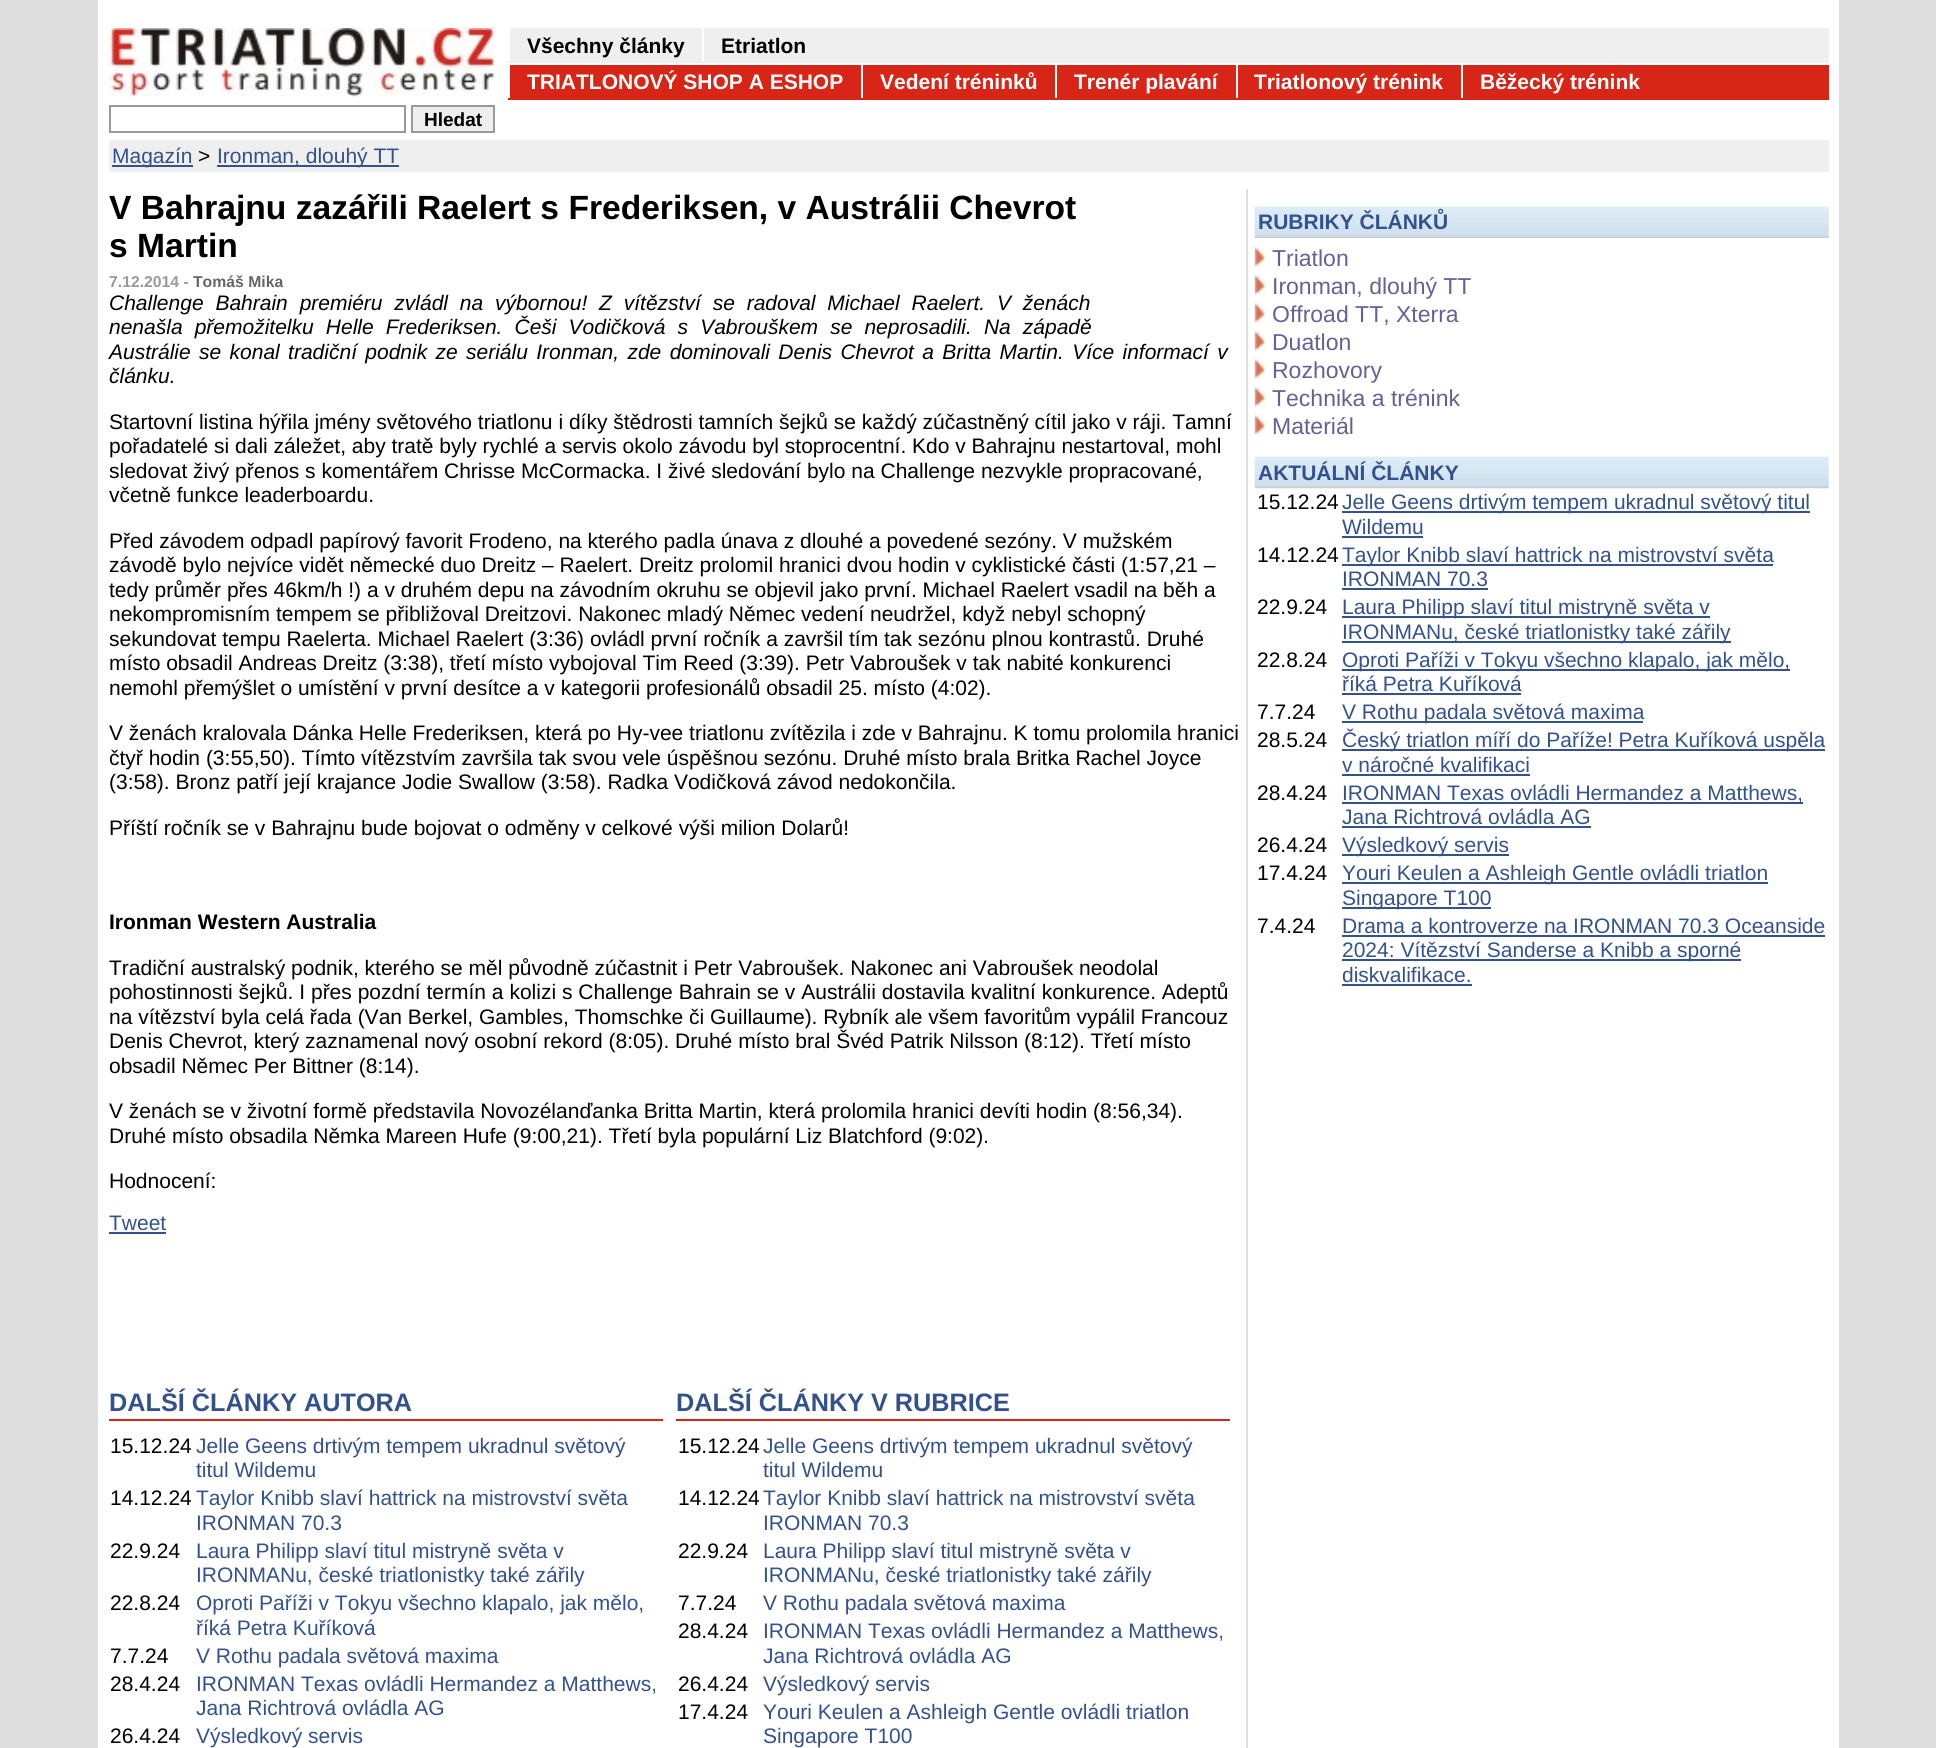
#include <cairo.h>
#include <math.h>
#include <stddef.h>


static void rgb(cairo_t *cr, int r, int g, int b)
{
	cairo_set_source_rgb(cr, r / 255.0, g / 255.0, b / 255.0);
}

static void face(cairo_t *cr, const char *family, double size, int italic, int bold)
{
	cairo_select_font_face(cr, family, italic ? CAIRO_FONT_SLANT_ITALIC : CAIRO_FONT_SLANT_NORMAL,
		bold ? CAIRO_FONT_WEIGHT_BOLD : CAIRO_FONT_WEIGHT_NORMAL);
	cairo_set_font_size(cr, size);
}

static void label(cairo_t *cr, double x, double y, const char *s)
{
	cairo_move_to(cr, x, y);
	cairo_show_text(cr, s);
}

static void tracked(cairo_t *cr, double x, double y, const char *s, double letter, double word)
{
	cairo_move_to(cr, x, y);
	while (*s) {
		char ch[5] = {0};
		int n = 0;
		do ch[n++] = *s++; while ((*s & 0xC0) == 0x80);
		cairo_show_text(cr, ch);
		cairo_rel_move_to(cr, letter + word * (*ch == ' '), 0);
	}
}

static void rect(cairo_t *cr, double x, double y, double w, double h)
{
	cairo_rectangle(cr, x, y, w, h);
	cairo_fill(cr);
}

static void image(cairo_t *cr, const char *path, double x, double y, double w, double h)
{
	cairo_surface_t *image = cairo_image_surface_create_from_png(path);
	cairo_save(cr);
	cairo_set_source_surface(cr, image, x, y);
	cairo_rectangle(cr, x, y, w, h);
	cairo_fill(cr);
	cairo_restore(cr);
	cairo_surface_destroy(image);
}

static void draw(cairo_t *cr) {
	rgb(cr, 222, 222, 222);
	cairo_paint(cr);
	rgb(cr, 255, 255, 255);
	rect(cr, 98, 0, 1741, 135);
	image(cr, "image0.png", 108, 28, 386, 69);
	rgb(cr, 239, 239, 239);
	rect(cr, 508, 28, 1321, 35);
	rgb(cr, 255, 255, 255);
	rect(cr, 508, 28, 2, 33);
	face(cr, "Liberation Sans", 21, 0, 1);
	rgb(cr, 0, 0, 0);
	label(cr, 527, 53, "Všechny články");
	rgb(cr, 255, 255, 255);
	rect(cr, 702, 28, 2, 33);
	rgb(cr, 0, 0, 0);
	label(cr, 721, 53, "Etriatlon");
	rgb(cr, 215, 37, 23);
	rect(cr, 508, 65, 1321, 35);
	rgb(cr, 255, 255, 255);
	rect(cr, 508, 65, 2, 33);
	label(cr, 527, 89, "TRIATLONOVÝ SHOP A ESHOP");
	rect(cr, 861, 65, 2, 33);
	label(cr, 880, 89, "Vedení tréninků");
	rect(cr, 1055, 65, 2, 33);
	label(cr, 1074, 89, "Trenér plavání");
	rect(cr, 1236, 65, 2, 33);
	label(cr, 1254, 89, "Triatlonový trénink");
	rect(cr, 1461, 65, 2, 33);
	label(cr, 1480, 89, "Běžecký trénink");
	cairo_rectangle(cr, 110, 106, 295, 26);
	rgb(cr, 153, 153, 153);
	cairo_stroke(cr);
	rgb(cr, 238, 238, 238);
	cairo_rectangle(cr, 412, 106, 82, 26);
	cairo_fill_preserve(cr);
	rgb(cr, 153, 153, 153);
	cairo_stroke(cr);
	face(cr, "Liberation Sans", 19, 0, 1);
	rgb(cr, 0, 0, 0);
	label(cr, 424, 126, "Hledat");
	rgb(cr, 239, 239, 239);
	rect(cr, 109, 140, 1720, 32);
	rgb(cr, 255, 255, 255);
	rect(cr, 109, 135, 1720, 5);
	rect(cr, 1829, 135, 10, 37);
	rect(cr, 109, 172, 1730, 17);
	rect(cr, 98, 135, 11, 54);
	rgb(cr, 51, 82, 139);
	rect(cr, 112, 165, 81, 2);
	face(cr, "Liberation Sans", 21, 0, 0);
	label(cr, 112, 163, "Magazín");
	rgb(cr, 0, 0, 0);
	label(cr, 198, 163, ">");
	rgb(cr, 51, 82, 139);
	rect(cr, 217, 165, 182, 2);
	label(cr, 217, 163, "Ironman, dlouhý TT");
	rgb(cr, 255, 255, 255);
	rect(cr, 98, 189, 1741, 1559);
	rgb(cr, 222, 222, 222);
	rect(cr, 1246, 189, 2, 1559);
	face(cr, "Liberation Sans", 33.6, 0, 1);
	rgb(cr, 0, 0, 0);
	label(cr, 109, 219, "V Bahrajnu zazářili Raelert s Frederiksen, v Austrálii Chevrot");
	label(cr, 109, 257, "s Martin");
	face(cr, "Liberation Sans", 15.75, 0, 1);
	rgb(cr, 153, 153, 153);
	label(cr, 109, 287, "7.12.2014 -");
	rgb(cr, 102, 102, 102);
	label(cr, 193, 287, "Tomáš Mika");
	face(cr, "Liberation Sans", 21, 1, 0);
	rgb(cr, 0, 0, 0);
	tracked(cr, 109, 310, "Challenge Bahrain premiéru zvládl na výbornou! Z vítězství se radoval Michael Raelert. V ženách", 0, 6);
	tracked(cr, 109, 334, "nenašla přemožitelku Helle Frederiksen. Češi Vodičková s Vabrouškem se neprosadili. Na západě", 0, 6.25);
	tracked(cr, 109, 359, "Austrálie se konal tradiční podnik ze seriálu Ironman, zde dominovali Denis Chevrot a Britta Martin. Více informací v", 0, 2.5);
	label(cr, 109, 383, "článku.");
	face(cr, "Liberation Sans", 21, 0, 0);
	label(cr, 109, 429, "Startovní listina hýřila jmény světového triatlonu i díky štědrosti tamních šejků se každý zúčastněný cítil jako v ráji. Tamní");
	label(cr, 109, 453, "pořadatelé si dali záležet, aby tratě byly rychlé a servis okolo závodu byl stoprocentní. Kdo v Bahrajnu nestartoval, mohl");
	label(cr, 109, 478, "sledovat živý přenos s komentářem Chrisse McCormacka. I živé sledování bylo na Challenge nezvykle propracované,");
	label(cr, 109, 502, "včetně funkce leaderboardu.");
	label(cr, 109, 548, "Před závodem odpadl papírový favorit Frodeno, na kterého padla únava z dlouhé a povedené sezóny. V mužském");
	label(cr, 109, 572, "závodě bylo nejvíce vidět německé duo Dreitz – Raelert. Dreitz prolomil hranici dvou hodin v cyklistické části (1:57,21 –");
	label(cr, 109, 597, "tedy průměr přes 46km/h !) a v druhém depu na závodním okruhu se objevil jako první. Michael Raelert vsadil na běh a");
	label(cr, 109, 621, "nekompromisním tempem se přibližoval Dreitzovi. Nakonec mladý Němec vedení neudržel, když nebyl schopný");
	label(cr, 109, 646, "sekundovat tempu Raelerta. Michael Raelert (3:36) ovládl první ročník a završil tím tak sezónu plnou kontrastů. Druhé");
	label(cr, 109, 670, "místo obsadil Andreas Dreitz (3:38), třetí místo vybojoval Tim Reed (3:39). Petr Vabroušek v tak nabité konkurenci");
	label(cr, 109, 695, "nemohl přemýšlet o umístění v první desítce a v kategorii profesionálů obsadil 25. místo (4:02).");
	label(cr, 109, 740, "V ženách kralovala Dánka Helle Frederiksen, která po Hy-vee triatlonu zvítězila i zde v Bahrajnu. K tomu prolomila hranici");
	label(cr, 109, 765, "čtyř hodin (3:55,50). Tímto vítězstvím završila tak svou vele úspěšnou sezónu. Druhé místo brala Britka Rachel Joyce");
	label(cr, 109, 789, "(3:58). Bronz patří její krajance Jodie Swallow (3:58). Radka Vodičková závod nedokončila.");
	label(cr, 109, 835, "Příští ročník se v Bahrajnu bude bojovat o odměny v celkové výši milion Dolarů!");
	face(cr, "Liberation Sans", 21, 0, 1);
	label(cr, 109, 929, "Ironman Western Australia");
	face(cr, "Liberation Sans", 21, 0, 0);
	label(cr, 109, 975, "Tradiční australský podnik, kterého se měl původně zúčastnit i Petr Vabroušek. Nakonec ani Vabroušek neodolal");
	label(cr, 109, 999, "pohostinnosti šejků. I přes pozdní termín a kolizi s Challenge Bahrain se v Austrálii dostavila kvalitní konkurence. Adeptů");
	label(cr, 109, 1024, "na vítězství byla celá řada (Van Berkel, Gambles, Thomschke či Guillaume). Rybník ale všem favoritům vypálil Francouz");
	label(cr, 109, 1048, "Denis Chevrot, který zaznamenal nový osobní rekord (8:05). Druhé místo bral Švéd Patrik Nilsson (8:12). Třetí místo");
	label(cr, 109, 1073, "obsadil Němec Per Bittner (8:14).");
	label(cr, 109, 1118, "V ženách se v životní formě představila Novozélanďanka Britta Martin, která prolomila hranici devíti hodin (8:56,34).");
	label(cr, 109, 1143, "Druhé místo obsadila Němka Mareen Hufe (9:00,21). Třetí byla populární Liz Blatchford (9:02).");
	label(cr, 109, 1188, "Hodnocení:");
	rgb(cr, 51, 82, 139);
	label(cr, 109, 1230, "Tweet");
	rect(cr, 109, 1232, 57, 2);
	rgb(cr, 215, 37, 23);
	rect(cr, 109, 1419, 554, 2);
	face(cr, "Liberation Sans", 25.25, 0, 1);
	rgb(cr, 51, 82, 139);
	label(cr, 109, 1411, "DALŠÍ ČLÁNKY AUTORA");
	face(cr, "Liberation Sans", 21, 0, 0);
	rgb(cr, 0, 0, 0);
	label(cr, 110, 1453, "15.12.24");
	rgb(cr, 51, 82, 139);
	label(cr, 196, 1453, "Jelle Geens drtivým tempem ukradnul světový");
	label(cr, 196, 1477, "titul Wildemu");
	rgb(cr, 0, 0, 0);
	label(cr, 110, 1505, "14.12.24");
	rgb(cr, 51, 82, 139);
	label(cr, 196, 1505, "Taylor Knibb slaví hattrick na mistrovství světa");
	label(cr, 196, 1530, "IRONMAN 70.3");
	rgb(cr, 0, 0, 0);
	label(cr, 110, 1558, "22.9.24");
	rgb(cr, 51, 82, 139);
	label(cr, 196, 1558, "Laura Philipp slaví titul mistryně světa v");
	label(cr, 196, 1582, "IRONMANu, české triatlonistky také zářily");
	rgb(cr, 0, 0, 0);
	label(cr, 110, 1610, "22.8.24");
	rgb(cr, 51, 82, 139);
	label(cr, 196, 1610, "Oproti Paříži v Tokyu všechno klapalo, jak mělo,");
	label(cr, 196, 1635, "říká Petra Kuříková");
	rgb(cr, 0, 0, 0);
	label(cr, 110, 1663, "7.7.24");
	rgb(cr, 51, 82, 139);
	label(cr, 196, 1663, "V Rothu padala světová maxima");
	rgb(cr, 0, 0, 0);
	label(cr, 110, 1691, "28.4.24");
	rgb(cr, 51, 82, 139);
	label(cr, 196, 1691, "IRONMAN Texas ovládli Hermandez a Matthews,");
	label(cr, 196, 1715, "Jana Richtrová ovládla AG");
	rgb(cr, 0, 0, 0);
	label(cr, 110, 1743, "26.4.24");
	rgb(cr, 51, 82, 139);
	label(cr, 196, 1743, "Výsledkový servis");
	rgb(cr, 215, 37, 23);
	rect(cr, 676, 1419, 554, 2);
	face(cr, "Liberation Sans", 25.25, 0, 1);
	rgb(cr, 51, 82, 139);
	label(cr, 676, 1411, "DALŠÍ ČLÁNKY V RUBRICE");
	face(cr, "Liberation Sans", 21, 0, 0);
	rgb(cr, 0, 0, 0);
	label(cr, 678, 1453, "15.12.24");
	rgb(cr, 51, 82, 139);
	label(cr, 763, 1453, "Jelle Geens drtivým tempem ukradnul světový");
	label(cr, 763, 1477, "titul Wildemu");
	rgb(cr, 0, 0, 0);
	label(cr, 678, 1505, "14.12.24");
	rgb(cr, 51, 82, 139);
	label(cr, 763, 1505, "Taylor Knibb slaví hattrick na mistrovství světa");
	label(cr, 763, 1530, "IRONMAN 70.3");
	rgb(cr, 0, 0, 0);
	label(cr, 678, 1558, "22.9.24");
	rgb(cr, 51, 82, 139);
	label(cr, 763, 1558, "Laura Philipp slaví titul mistryně světa v");
	label(cr, 763, 1582, "IRONMANu, české triatlonistky také zářily");
	rgb(cr, 0, 0, 0);
	label(cr, 678, 1610, "7.7.24");
	rgb(cr, 51, 82, 139);
	label(cr, 763, 1610, "V Rothu padala světová maxima");
	rgb(cr, 0, 0, 0);
	label(cr, 678, 1638, "28.4.24");
	rgb(cr, 51, 82, 139);
	label(cr, 763, 1638, "IRONMAN Texas ovládli Hermandez a Matthews,");
	label(cr, 763, 1663, "Jana Richtrová ovládla AG");
	rgb(cr, 0, 0, 0);
	label(cr, 678, 1691, "26.4.24");
	rgb(cr, 51, 82, 139);
	label(cr, 763, 1691, "Výsledkový servis");
	rgb(cr, 0, 0, 0);
	label(cr, 678, 1719, "17.4.24");
	rgb(cr, 51, 82, 139);
	label(cr, 763, 1719, "Youri Keulen a Ashleigh Gentle ovládli triatlon");
	label(cr, 763, 1743, "Singapore T100");
	image(cr, "image1.png", 1254, 206, 575, 32);
	face(cr, "Liberation Sans", 21, 0, 1);
	label(cr, 1258, 229, "RUBRIKY ČLÁNKŮ");
	image(cr, "image2.png", 1254, 246, 12, 22);
	face(cr, "Liberation Sans", 23, 0, 0);
	rgb(cr, 101, 97, 148);
	label(cr, 1272, 266, "Triatlon");
	image(cr, "image2.png", 1254, 274, 12, 22);
	label(cr, 1272, 294, "Ironman, dlouhý TT");
	image(cr, "image2.png", 1254, 302, 12, 22);
	label(cr, 1272, 322, "Offroad TT, Xterra");
	image(cr, "image2.png", 1254, 330, 12, 22);
	label(cr, 1272, 350, "Duatlon");
	image(cr, "image2.png", 1254, 358, 12, 22);
	label(cr, 1272, 378, "Rozhovory");
	image(cr, "image2.png", 1254, 386, 12, 22);
	label(cr, 1272, 406, "Technika a trénink");
	image(cr, "image2.png", 1254, 414, 12, 22);
	label(cr, 1272, 434, "Materiál");
	image(cr, "image3.png", 1254, 456, 575, 33);
	face(cr, "Liberation Sans", 21, 0, 1);
	rgb(cr, 51, 82, 139);
	label(cr, 1258, 480, "AKTUÁLNÍ ČLÁNKY");
	face(cr, "Liberation Sans", 21, 0, 0);
	rgb(cr, 0, 0, 0);
	label(cr, 1257, 509, "15.12.24");
	rgb(cr, 51, 82, 139);
	rect(cr, 1342, 511, 468, 2);
	label(cr, 1342, 509, "Jelle Geens drtivým tempem ukradnul světový titul");
	label(cr, 1342, 534, "Wildemu");
	rect(cr, 1342, 536, 81, 2);
	rgb(cr, 0, 0, 0);
	label(cr, 1257, 562, "14.12.24");
	rgb(cr, 51, 82, 139);
	rect(cr, 1342, 564, 431, 2);
	label(cr, 1342, 562, "Taylor Knibb slaví hattrick na mistrovství světa");
	label(cr, 1342, 586, "IRONMAN 70.3");
	rect(cr, 1342, 588, 146, 2);
	rgb(cr, 0, 0, 0);
	label(cr, 1257, 614, "22.9.24");
	rgb(cr, 51, 82, 139);
	rect(cr, 1342, 616, 368, 2);
	label(cr, 1342, 614, "Laura Philipp slaví titul mistryně světa v");
	rect(cr, 1342, 641, 389, 2);
	label(cr, 1342, 639, "IRONMANu, české triatlonistky také zářily");
	rgb(cr, 0, 0, 0);
	label(cr, 1257, 667, "22.8.24");
	rgb(cr, 51, 82, 139);
	rect(cr, 1342, 669, 448, 2);
	label(cr, 1342, 667, "Oproti Paříži v Tokyu všechno klapalo, jak mělo,");
	label(cr, 1342, 691, "říká Petra Kuříková");
	rect(cr, 1342, 693, 179, 2);
	rgb(cr, 0, 0, 0);
	label(cr, 1257, 719, "7.7.24");
	rgb(cr, 51, 82, 139);
	rect(cr, 1342, 721, 301, 2);
	label(cr, 1342, 719, "V Rothu padala světová maxima");
	rgb(cr, 0, 0, 0);
	label(cr, 1257, 747, "28.5.24");
	rgb(cr, 51, 82, 139);
	rect(cr, 1342, 749, 483, 2);
	label(cr, 1342, 747, "Český triatlon míří do Paříže! Petra Kuříková uspěla");
	label(cr, 1342, 772, "v náročné kvalifikaci");
	rect(cr, 1342, 774, 188, 2);
	rgb(cr, 0, 0, 0);
	label(cr, 1257, 800, "28.4.24");
	rgb(cr, 51, 82, 139);
	rect(cr, 1342, 802, 461, 2);
	label(cr, 1342, 800, "IRONMAN Texas ovládli Hermandez a Matthews,");
	label(cr, 1342, 824, "Jana Richtrová ovládla AG");
	rect(cr, 1342, 826, 249, 2);
	rgb(cr, 0, 0, 0);
	label(cr, 1257, 852, "26.4.24");
	rgb(cr, 51, 82, 139);
	rect(cr, 1342, 854, 167, 2);
	label(cr, 1342, 852, "Výsledkový servis");
	rgb(cr, 0, 0, 0);
	label(cr, 1257, 880, "17.4.24");
	rgb(cr, 51, 82, 139);
	rect(cr, 1342, 882, 426, 2);
	label(cr, 1342, 880, "Youri Keulen a Ashleigh Gentle ovládli triatlon");
	rect(cr, 1342, 907, 149, 2);
	label(cr, 1342, 905, "Singapore T100");
	rgb(cr, 0, 0, 0);
	label(cr, 1257, 933, "7.4.24");
	rgb(cr, 51, 82, 139);
	label(cr, 1342, 933, "Drama a kontroverze na IRONMAN 70.3 Oceanside");
	rect(cr, 1342, 935, 483, 2);
	rect(cr, 1342, 959, 399, 2);
	label(cr, 1342, 957, "2024: Vítězství Sanderse a Knibb a sporné");
	label(cr, 1342, 982, "diskvalifikace.");
	rect(cr, 1342, 984, 130, 2);
}

int main(void) {
	cairo_surface_t *surface = cairo_image_surface_create(CAIRO_FORMAT_RGB24, 1936, 1748);
	cairo_t *cr = cairo_create(surface);
	cairo_font_options_t *options = cairo_font_options_create();
	cairo_font_options_set_hint_metrics(options, CAIRO_HINT_METRICS_OFF);
	cairo_font_options_set_hint_style(options, CAIRO_HINT_STYLE_NONE);
	cairo_set_font_options(cr, options);
	cairo_set_miter_limit(cr, 4);
	draw(cr);
	cairo_surface_write_to_png(surface, "render.png");
	cairo_font_options_destroy(options);
	cairo_destroy(cr);
	cairo_surface_destroy(surface);
	return 0;
}
